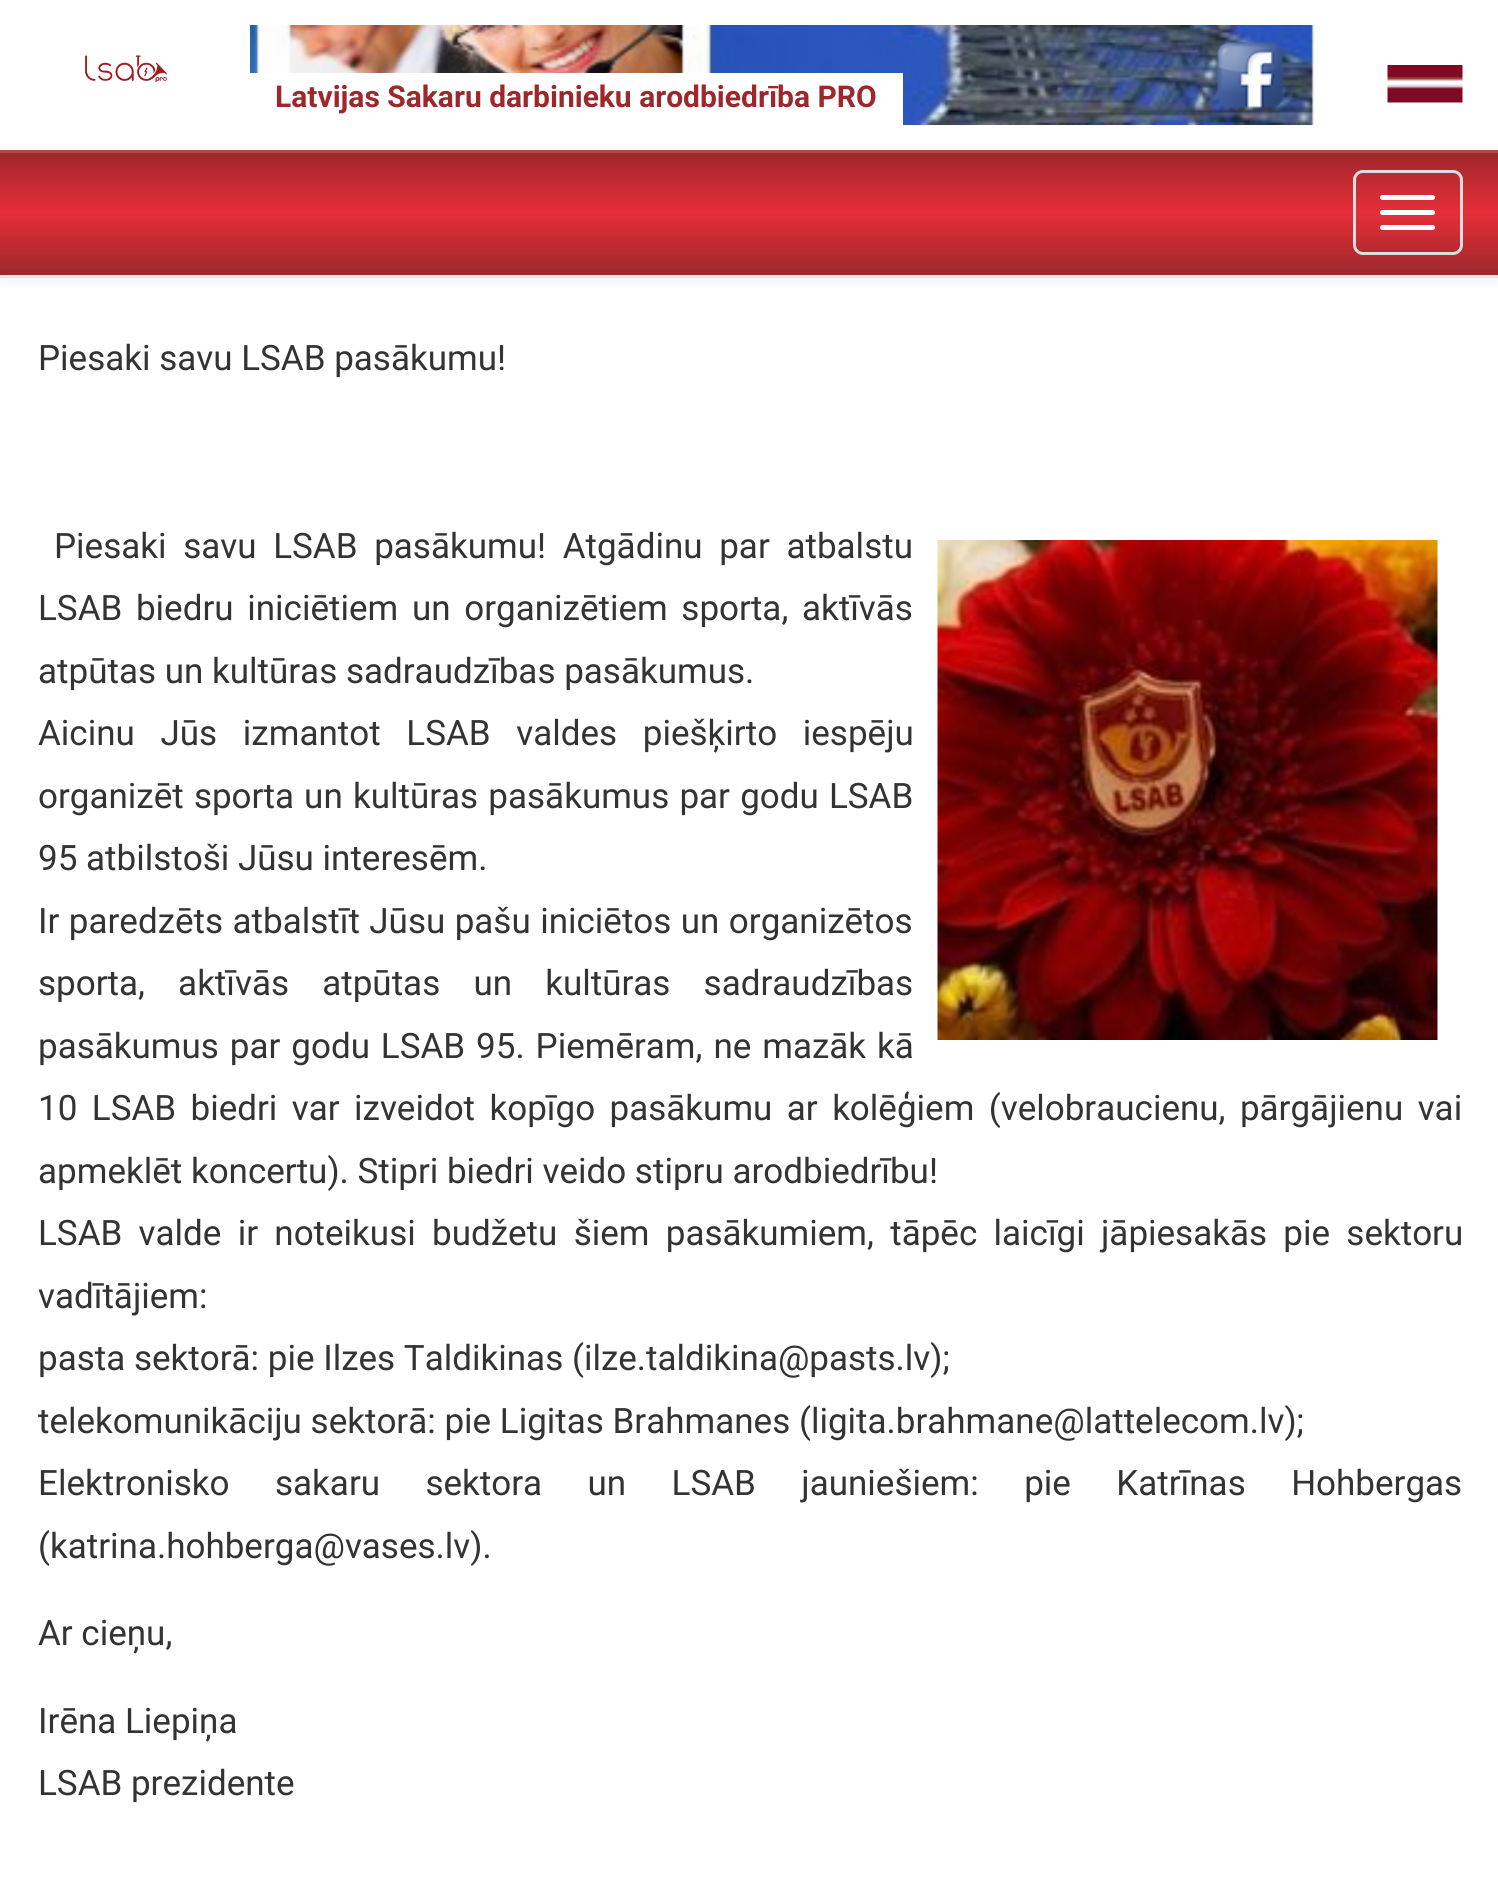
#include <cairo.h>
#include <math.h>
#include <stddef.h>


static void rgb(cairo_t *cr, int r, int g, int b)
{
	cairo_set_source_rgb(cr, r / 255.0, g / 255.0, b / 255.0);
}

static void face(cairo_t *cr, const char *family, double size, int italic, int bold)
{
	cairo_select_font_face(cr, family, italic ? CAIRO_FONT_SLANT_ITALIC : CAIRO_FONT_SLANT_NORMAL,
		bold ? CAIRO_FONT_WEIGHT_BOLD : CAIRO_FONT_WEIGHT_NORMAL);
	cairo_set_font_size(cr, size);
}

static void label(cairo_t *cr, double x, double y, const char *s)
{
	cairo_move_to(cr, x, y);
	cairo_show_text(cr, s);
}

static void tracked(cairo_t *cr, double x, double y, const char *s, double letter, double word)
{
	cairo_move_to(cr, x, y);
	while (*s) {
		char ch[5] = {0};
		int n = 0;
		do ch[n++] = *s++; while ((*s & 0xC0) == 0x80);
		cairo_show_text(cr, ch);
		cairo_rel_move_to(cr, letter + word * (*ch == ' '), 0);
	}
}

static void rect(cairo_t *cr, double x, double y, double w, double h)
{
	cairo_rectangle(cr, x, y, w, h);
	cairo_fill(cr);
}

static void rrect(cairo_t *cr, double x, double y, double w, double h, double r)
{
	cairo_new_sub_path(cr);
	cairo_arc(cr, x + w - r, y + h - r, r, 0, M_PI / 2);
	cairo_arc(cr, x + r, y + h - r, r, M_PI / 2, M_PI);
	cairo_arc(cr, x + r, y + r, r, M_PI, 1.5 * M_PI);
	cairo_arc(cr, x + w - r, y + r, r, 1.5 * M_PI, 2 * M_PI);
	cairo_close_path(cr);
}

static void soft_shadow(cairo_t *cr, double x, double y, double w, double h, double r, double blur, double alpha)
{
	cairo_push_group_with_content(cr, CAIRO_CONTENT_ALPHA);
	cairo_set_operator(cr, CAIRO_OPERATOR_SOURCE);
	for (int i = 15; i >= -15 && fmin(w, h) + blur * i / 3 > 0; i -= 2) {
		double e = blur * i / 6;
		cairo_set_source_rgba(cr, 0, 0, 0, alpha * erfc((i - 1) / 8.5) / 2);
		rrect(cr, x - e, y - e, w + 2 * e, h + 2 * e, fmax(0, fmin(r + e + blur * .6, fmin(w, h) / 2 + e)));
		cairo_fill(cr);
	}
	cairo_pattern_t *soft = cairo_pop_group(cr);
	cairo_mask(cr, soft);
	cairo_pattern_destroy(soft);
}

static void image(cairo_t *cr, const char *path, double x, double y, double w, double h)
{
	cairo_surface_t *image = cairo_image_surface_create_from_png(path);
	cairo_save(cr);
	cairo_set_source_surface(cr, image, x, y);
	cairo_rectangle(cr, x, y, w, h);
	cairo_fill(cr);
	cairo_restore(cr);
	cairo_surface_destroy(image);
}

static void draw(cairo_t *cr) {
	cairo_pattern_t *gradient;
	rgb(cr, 255, 255, 255);
	cairo_paint(cr);
	image(cr, "image0.png", 85, 55, 82, 27);
	image(cr, "image1.png", 250, 25, 1069, 100);
	rgb(cr, 255, 255, 255);
	rect(cr, 250, 73, 653, 52);
	face(cr, "Roboto", 30, 0, 1);
	rgb(cr, 156, 40, 43);
	label(cr, 275, 107, "Latvijas Sakaru darbinieku arodbiedrība PRO");
	image(cr, "image2.png", 1216, 41, 68, 68);
	image(cr, "image3.png", 1387, 65, 76, 38);
	rgb(cr, 0, 0, 0);
	soft_shadow(cr, 0, 153, 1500, 127, 0, 6, 0.07);
	gradient = cairo_pattern_create_linear(750, 150, 750, 275);
	cairo_pattern_add_color_stop_rgba(gradient, 0, 0.612, 0.157, 0.169, 1);
	cairo_pattern_add_color_stop_rgba(gradient, 0.5, 0.902, 0.18, 0.22, 1);
	cairo_pattern_add_color_stop_rgba(gradient, 1, 0.612, 0.157, 0.169, 1);
	cairo_set_source(cr, gradient);
	cairo_pattern_destroy(gradient);
	rect(cr, 0, 153, 1498, 122);
	rgb(cr, 173, 72, 75);
	rect(cr, 0, 150, 1498, 3);
	rgb(cr, 231, 231, 231);
	rect(cr, 0, 275, 1498, 3);
	rrect(cr, 1354.5, 171.5, 107, 82, 8.5);
	rgb(cr, 221, 221, 221);
	cairo_set_line_width(cr, 3);
	cairo_stroke(cr);
	rgb(cr, 255, 255, 255);
	rrect(cr, 1380, 195, 55, 5, 2.5);
	cairo_fill(cr);
	rrect(cr, 1380, 210, 55, 5, 2.5);
	cairo_fill(cr);
	rrect(cr, 1380, 225, 55, 5, 2.5);
	cairo_fill(cr);
	face(cr, "Roboto", 35, 0, 0);
	rgb(cr, 51, 51, 51);
	label(cr, 38, 370, "Piesaki savu LSAB pasākumu!");
	tracked(cr, 54, 558, "Piesaki savu LSAB pasākumu! Atgādinu par atbalstu", 0, 8);
	image(cr, "image4.png", 937, 540, 501, 500);
	tracked(cr, 38, 620, "LSAB biedru iniciētiem un organizētiem sporta, aktīvās", 0, 5);
	label(cr, 38, 683, "atpūtas un kultūras sadraudzības pasākumus.");
	tracked(cr, 38, 745, "Aicinu Jūs izmantot LSAB valdes piešķirto iespēju", 0, 17);
	tracked(cr, 38, 808, "organizēt sporta un kultūras pasākumus par godu LSAB", 0, 1.5);
	label(cr, 38, 870, "95 atbilstoši Jūsu interesēm.");
	tracked(cr, 38, 933, "Ir paredzēts atbalstīt Jūsu pašu iniciētos un organizētos", 0, 0.75);
	tracked(cr, 38, 995, "sporta, aktīvās atpūtas un kultūras sadraudzības", 0, 24.5);
	tracked(cr, 38, 1058, "pasākumus par godu LSAB 95. Piemēram, ne mazāk kā", 0, 2.25);
	tracked(cr, 38, 1120, "10 LSAB biedri var izveidot kopīgo pasākumu ar kolēģiem (velobraucienu, pārgājienu vai", 0, 5.75);
	label(cr, 38, 1183, "apmeklēt koncertu). Stipri biedri veido stipru arodbiedrību!");
	tracked(cr, 38, 1245, "LSAB valde ir noteikusi budžetu šiem pasākumiem, tāpēc laicīgi jāpiesakās pie sektoru", 0, 7.6);
	label(cr, 38, 1308, "vadītājiem:");
	label(cr, 38, 1370, "pasta sektorā: pie Ilzes Taldikinas (ilze.taldikina@pasts.lv);");
	label(cr, 38, 1433, "telekomunikāciju sektorā: pie Ligitas Brahmanes (ligita.brahmane@lattelecom.lv);");
	tracked(cr, 38, 1495, "Elektronisko sakaru sektora un LSAB jauniešiem: pie Katrīnas Hohbergas", 0, 36.75);
	label(cr, 38, 1558, "(katrina.hohberga@vases.lv).");
	label(cr, 38, 1645, "Ar cieņu,");
	label(cr, 38, 1733, "Irēna Liepiņa");
	label(cr, 38, 1795, "LSAB prezidente");
}

int main(void) {
	cairo_surface_t *surface = cairo_image_surface_create(CAIRO_FORMAT_RGB24, 1498, 1885);
	cairo_t *cr = cairo_create(surface);
	cairo_font_options_t *options = cairo_font_options_create();
	cairo_font_options_set_hint_metrics(options, CAIRO_HINT_METRICS_OFF);
	cairo_font_options_set_hint_style(options, CAIRO_HINT_STYLE_NONE);
	cairo_set_font_options(cr, options);
	cairo_set_miter_limit(cr, 4);
	draw(cr);
	cairo_surface_write_to_png(surface, "render.png");
	cairo_font_options_destroy(options);
	cairo_destroy(cr);
	cairo_surface_destroy(surface);
	return 0;
}
